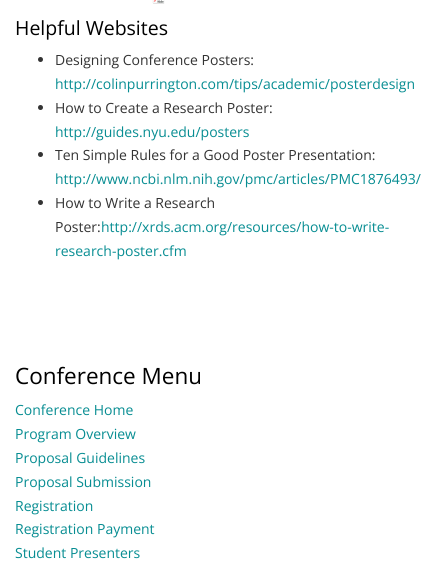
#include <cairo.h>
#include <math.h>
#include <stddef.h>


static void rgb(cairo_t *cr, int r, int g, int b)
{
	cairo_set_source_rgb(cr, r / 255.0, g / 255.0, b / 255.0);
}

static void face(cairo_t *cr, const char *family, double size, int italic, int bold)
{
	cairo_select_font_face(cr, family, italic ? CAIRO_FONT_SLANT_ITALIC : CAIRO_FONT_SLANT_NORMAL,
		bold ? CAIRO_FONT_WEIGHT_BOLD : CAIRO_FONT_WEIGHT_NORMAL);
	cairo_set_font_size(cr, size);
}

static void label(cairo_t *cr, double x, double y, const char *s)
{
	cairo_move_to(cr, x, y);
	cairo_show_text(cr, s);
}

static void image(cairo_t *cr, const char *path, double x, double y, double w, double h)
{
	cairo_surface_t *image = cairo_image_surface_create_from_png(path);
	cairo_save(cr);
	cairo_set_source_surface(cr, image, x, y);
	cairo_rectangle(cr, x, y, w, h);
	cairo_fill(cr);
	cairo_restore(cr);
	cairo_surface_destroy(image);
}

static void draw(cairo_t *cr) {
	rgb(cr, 255, 255, 255);
	cairo_paint(cr);
	image(cr, "image0.png", 152, 0, 13, 4);
	face(cr, "Open Sans", 19.5, 0, 0);
	rgb(cr, 0, 0, 0);
	label(cr, 15, 35, "Helpful Websites");
	rgb(cr, 51, 51, 51);
	cairo_new_path(cr);
	cairo_arc(cr, 40.5, 59.5, 2.5, 0, 2 * M_PI);
	cairo_fill(cr);
	face(cr, "Open Sans", 14, 0, 0);
	label(cr, 55, 65, "Designing Conference Posters:");
	rgb(cr, 7, 141, 146);
	label(cr, 55, 89, "http://colinpurrington.com/tips/academic/posterdesign");
	rgb(cr, 51, 51, 51);
	cairo_new_path(cr);
	cairo_arc(cr, 40.5, 107.5, 2.5, 0, 2 * M_PI);
	cairo_fill(cr);
	label(cr, 55, 113, "How to Create a Research Poster:");
	rgb(cr, 7, 141, 146);
	label(cr, 55, 137, "http://guides.nyu.edu/posters");
	rgb(cr, 51, 51, 51);
	cairo_new_path(cr);
	cairo_arc(cr, 40.5, 154.5, 2.5, 0, 2 * M_PI);
	cairo_fill(cr);
	label(cr, 55, 160, "Ten Simple Rules for a Good Poster Presentation:");
	rgb(cr, 7, 141, 146);
	label(cr, 55, 184, "http://www.ncbi.nlm.nih.gov/pmc/articles/PMC1876493/");
	rgb(cr, 51, 51, 51);
	cairo_new_path(cr);
	cairo_arc(cr, 40.5, 202.5, 2.5, 0, 2 * M_PI);
	cairo_fill(cr);
	label(cr, 55, 208, "How to Write a Research");
	label(cr, 55, 232, "Poster:");
	rgb(cr, 7, 141, 146);
	label(cr, 101, 232, "http://xrds.acm.org/resources/how-to-write-");
	label(cr, 55, 256, "research-poster.cfm");
	face(cr, "Open Sans", 22.5, 0, 0);
	rgb(cr, 0, 0, 0);
	label(cr, 15, 384, "Conference Menu");
	face(cr, "Open Sans", 14, 0, 0);
	rgb(cr, 7, 141, 146);
	label(cr, 15, 415, "Conference Home");
	label(cr, 15, 439, "Program Overview");
	label(cr, 15, 463, "Proposal Guidelines");
	label(cr, 15, 487, "Proposal Submission");
	label(cr, 15, 511, "Registration");
	label(cr, 15, 534, "Registration Payment");
	label(cr, 15, 558, "Student Presenters");
}

int main(void) {
	cairo_surface_t *surface = cairo_image_surface_create(CAIRO_FORMAT_RGB24, 436, 575);
	cairo_t *cr = cairo_create(surface);
	cairo_font_options_t *options = cairo_font_options_create();
	cairo_font_options_set_hint_metrics(options, CAIRO_HINT_METRICS_OFF);
	cairo_font_options_set_hint_style(options, CAIRO_HINT_STYLE_NONE);
	cairo_set_font_options(cr, options);
	cairo_set_miter_limit(cr, 4);
	draw(cr);
	cairo_surface_write_to_png(surface, "render.png");
	cairo_font_options_destroy(options);
	cairo_destroy(cr);
	cairo_surface_destroy(surface);
	return 0;
}
